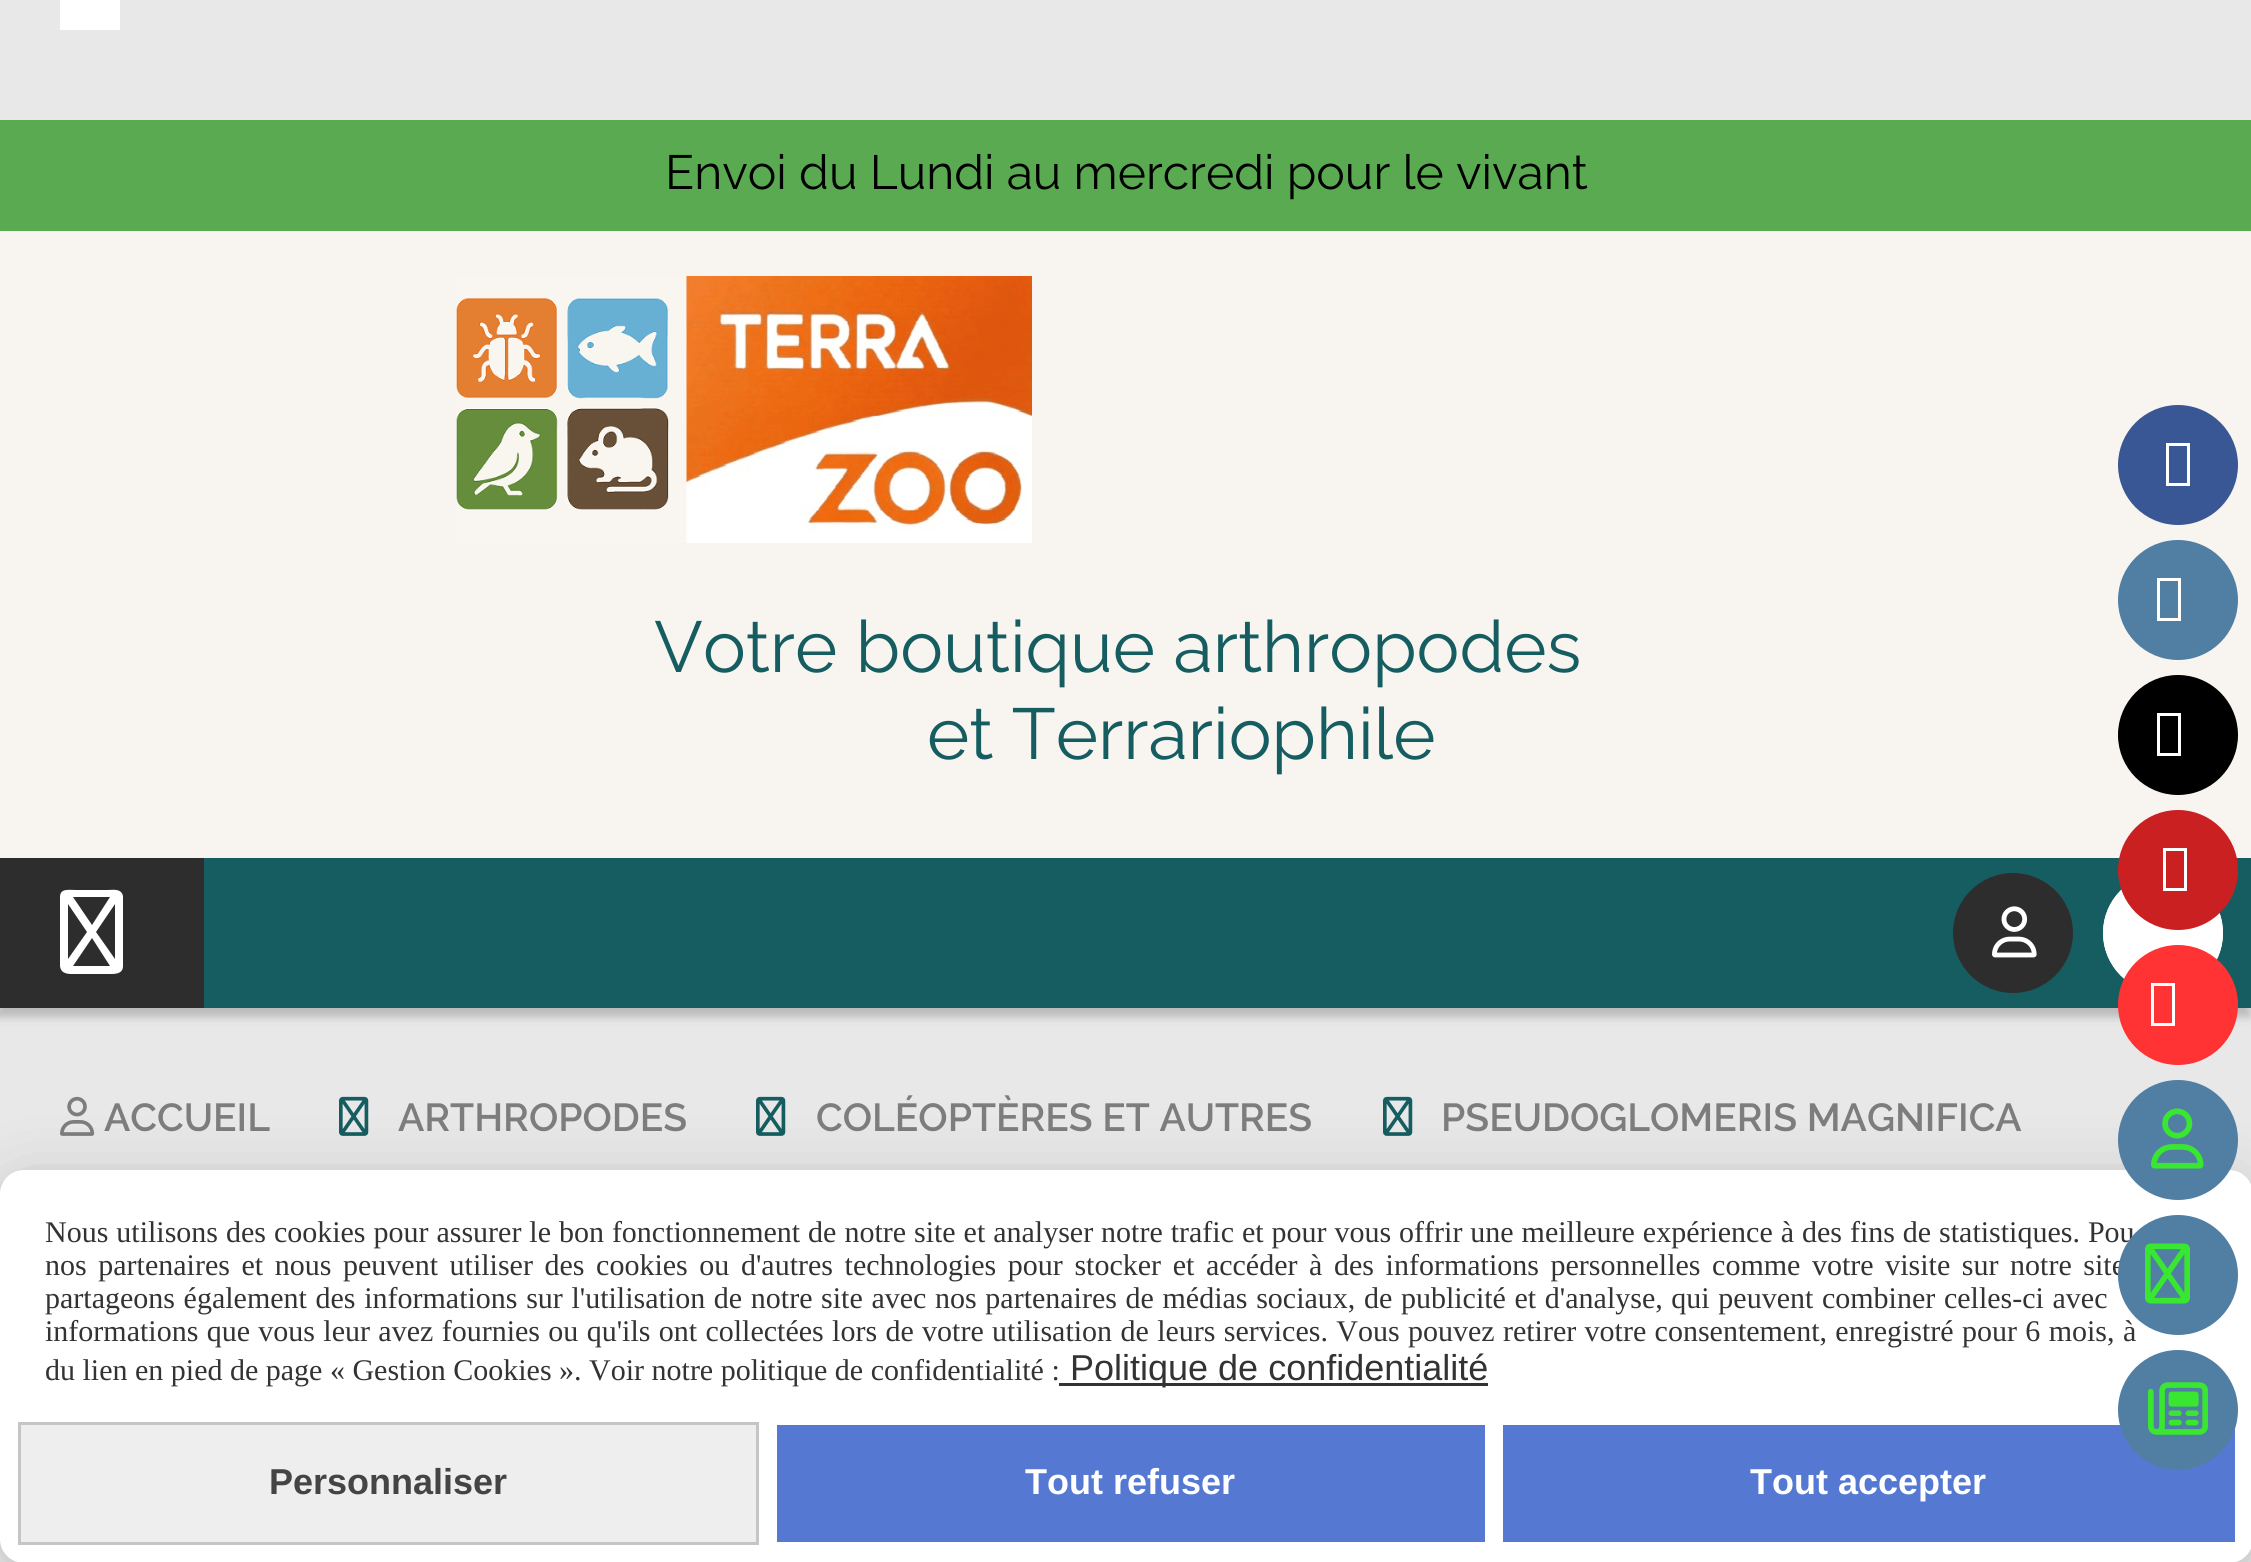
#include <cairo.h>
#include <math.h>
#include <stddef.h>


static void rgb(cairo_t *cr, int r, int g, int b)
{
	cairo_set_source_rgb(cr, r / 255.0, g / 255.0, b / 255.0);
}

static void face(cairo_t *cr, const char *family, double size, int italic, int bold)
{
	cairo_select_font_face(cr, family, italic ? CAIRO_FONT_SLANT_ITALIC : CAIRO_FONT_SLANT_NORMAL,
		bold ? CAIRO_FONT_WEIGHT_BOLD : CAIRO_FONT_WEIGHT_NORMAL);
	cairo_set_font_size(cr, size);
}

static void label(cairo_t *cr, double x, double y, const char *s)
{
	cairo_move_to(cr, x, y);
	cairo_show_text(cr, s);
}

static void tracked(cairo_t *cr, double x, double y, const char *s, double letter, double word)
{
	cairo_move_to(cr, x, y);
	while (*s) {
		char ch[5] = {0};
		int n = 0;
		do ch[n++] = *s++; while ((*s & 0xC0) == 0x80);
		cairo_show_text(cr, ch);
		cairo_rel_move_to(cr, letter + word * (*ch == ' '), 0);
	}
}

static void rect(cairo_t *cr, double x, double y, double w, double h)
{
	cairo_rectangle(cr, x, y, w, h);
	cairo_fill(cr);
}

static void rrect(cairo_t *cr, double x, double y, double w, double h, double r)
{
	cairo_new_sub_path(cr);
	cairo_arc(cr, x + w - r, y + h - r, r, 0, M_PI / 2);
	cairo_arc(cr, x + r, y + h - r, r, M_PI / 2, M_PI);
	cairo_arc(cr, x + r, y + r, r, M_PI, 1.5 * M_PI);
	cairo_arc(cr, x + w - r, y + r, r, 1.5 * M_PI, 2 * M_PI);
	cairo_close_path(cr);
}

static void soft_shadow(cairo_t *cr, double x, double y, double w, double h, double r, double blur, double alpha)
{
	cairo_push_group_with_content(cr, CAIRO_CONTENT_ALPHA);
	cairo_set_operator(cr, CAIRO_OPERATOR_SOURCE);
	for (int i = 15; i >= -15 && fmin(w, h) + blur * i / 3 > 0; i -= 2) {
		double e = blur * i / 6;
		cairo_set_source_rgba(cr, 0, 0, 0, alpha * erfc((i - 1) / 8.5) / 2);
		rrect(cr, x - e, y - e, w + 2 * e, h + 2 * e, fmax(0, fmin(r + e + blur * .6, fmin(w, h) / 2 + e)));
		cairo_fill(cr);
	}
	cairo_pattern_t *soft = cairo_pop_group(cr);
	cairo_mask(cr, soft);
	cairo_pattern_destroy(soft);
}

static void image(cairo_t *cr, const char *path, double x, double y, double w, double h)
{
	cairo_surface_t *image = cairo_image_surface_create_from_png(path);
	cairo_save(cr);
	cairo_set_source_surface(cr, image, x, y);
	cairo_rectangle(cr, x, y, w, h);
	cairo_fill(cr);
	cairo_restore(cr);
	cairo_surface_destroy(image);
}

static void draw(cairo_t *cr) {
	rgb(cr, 232, 232, 232);
	cairo_paint(cr);
	rgb(cr, 255, 255, 255);
	rect(cr, 60, 0, 60, 30);
	rgb(cr, 90, 170, 81);
	rect(cr, 0, 120, 2251, 111);
	face(cr, "Raleway", 48, 0, 0);
	rgb(cr, 0, 0, 0);
	label(cr, 665, 189, "Envoi du Lundi au mercredi pour le vivant");
	rgb(cr, 248, 245, 240);
	rect(cr, 0, 231, 2251, 627);
	image(cr, "image0.png", 456, 276, 576, 267);
	face(cr, "Raleway", 72, 0, 0);
	rgb(cr, 21, 93, 96);
	label(cr, 654, 672, "Votre boutique arthropodes");
	label(cr, 927, 759, "et Terrariophile");
	rgb(cr, 0, 0, 0);
	soft_shadow(cr, -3, 867, 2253, 150, 0, 4.5, 0.2);
	rgb(cr, 45, 45, 45);
	rect(cr, 0, 858, 204, 150);
	rgb(cr, 255, 255, 255);
	cairo_new_path(cr);
	cairo_move_to(cr, 68, 959);
	cairo_line_to(cr, 87, 932);
	cairo_line_to(cr, 68, 904);
	cairo_close_path(cr);
	cairo_move_to(cr, 73, 966);
	cairo_line_to(cr, 110, 966);
	cairo_line_to(cr, 92, 938);
	cairo_close_path(cr);
	cairo_move_to(cr, 96, 932);
	cairo_line_to(cr, 115, 959);
	cairo_line_to(cr, 115, 904);
	cairo_close_path(cr);
	cairo_move_to(cr, 110, 897);
	cairo_line_to(cr, 73, 897);
	cairo_line_to(cr, 92, 925);
	cairo_close_path(cr);
	cairo_move_to(cr, 60, 897);
	cairo_curve_to(cr, 60, 888, 69, 890, 76, 890);
	cairo_line_to(cr, 107, 890);
	cairo_curve_to(cr, 113, 890, 121, 888, 123, 896);
	cairo_line_to(cr, 123, 966);
	cairo_curve_to(cr, 123, 975, 113, 974, 107, 974);
	cairo_line_to(cr, 76, 974);
	cairo_curve_to(cr, 70, 974, 61, 975, 60, 966);
	cairo_close_path(cr);
	cairo_fill(cr);
	rgb(cr, 21, 93, 96);
	rect(cr, 204, 858, 2047, 150);
	rgb(cr, 45, 45, 45);
	cairo_arc(cr, 2013, 933, 60, 0, 2 * M_PI);
	cairo_fill(cr);
	image(cr, "image1.png", 1992, 906, 45, 52);
	image(cr, "image2.png", 2103, 889, 120, 90);
	cairo_arc(cr, 2163, 933, 57, 0, 2 * M_PI);
	rgb(cr, 255, 255, 255);
	cairo_set_line_width(cr, 6);
	cairo_stroke(cr);
	rgb(cr, 232, 232, 232);
	rect(cr, 0, 1023, 2247, 1);
	image(cr, "image3.png", 60, 1096, 35, 40);
	face(cr, "Raleway SemiBold", 39, 0, 0);
	rgb(cr, 125, 125, 125);
	label(cr, 104, 1131, "ACCUEIL");
	image(cr, "image4.png", 339, 1096, 30, 40);
	label(cr, 398, 1131, "ARTHROPODES");
	image(cr, "image4.png", 756, 1096, 30, 40);
	label(cr, 816, 1131, "COLÉOPTÈRES ET AUTRES");
	image(cr, "image4.png", 1383, 1096, 30, 40);
	label(cr, 1441, 1131, "PSEUDOGLOMERIS MAGNIFICA");
	rgb(cr, 58, 87, 149);
	cairo_new_path(cr);
	cairo_arc(cr, 2178, 465, 60, 0, 2 * M_PI);
	cairo_fill(cr);
	rgb(cr, 255, 255, 255);
	cairo_new_path(cr);
	cairo_move_to(cr, 2166, 486);
	cairo_line_to(cr, 2166, 443);
	cairo_line_to(cr, 2190, 443);
	cairo_line_to(cr, 2190, 486);
	cairo_close_path(cr);
	cairo_move_to(cr, 2169, 483);
	cairo_line_to(cr, 2187, 483);
	cairo_line_to(cr, 2187, 446);
	cairo_line_to(cr, 2169, 446);
	cairo_close_path(cr);
	cairo_fill(cr);
	rgb(cr, 81, 127, 164);
	cairo_arc(cr, 2178, 600, 60, 0, 2 * M_PI);
	cairo_fill(cr);
	rgb(cr, 255, 255, 255);
	cairo_new_path(cr);
	cairo_move_to(cr, 2157, 621);
	cairo_line_to(cr, 2157, 578);
	cairo_line_to(cr, 2181, 578);
	cairo_line_to(cr, 2181, 621);
	cairo_close_path(cr);
	cairo_move_to(cr, 2160, 618);
	cairo_line_to(cr, 2178, 618);
	cairo_line_to(cr, 2178, 581);
	cairo_line_to(cr, 2160, 581);
	cairo_close_path(cr);
	cairo_fill(cr);
	rgb(cr, 0, 0, 0);
	cairo_arc(cr, 2178, 735, 60, 0, 2 * M_PI);
	cairo_fill(cr);
	rgb(cr, 255, 255, 255);
	cairo_new_path(cr);
	cairo_move_to(cr, 2157, 756);
	cairo_line_to(cr, 2157, 713);
	cairo_line_to(cr, 2181, 713);
	cairo_line_to(cr, 2181, 756);
	cairo_close_path(cr);
	cairo_move_to(cr, 2160, 753);
	cairo_line_to(cr, 2178, 753);
	cairo_line_to(cr, 2178, 716);
	cairo_line_to(cr, 2160, 716);
	cairo_close_path(cr);
	cairo_fill(cr);
	rgb(cr, 203, 32, 33);
	cairo_arc(cr, 2178, 870, 60, 0, 2 * M_PI);
	cairo_fill(cr);
	rgb(cr, 255, 255, 255);
	cairo_new_path(cr);
	cairo_move_to(cr, 2163, 891);
	cairo_line_to(cr, 2163, 848);
	cairo_line_to(cr, 2187, 848);
	cairo_line_to(cr, 2187, 891);
	cairo_close_path(cr);
	cairo_move_to(cr, 2166, 888);
	cairo_line_to(cr, 2184, 888);
	cairo_line_to(cr, 2184, 851);
	cairo_line_to(cr, 2166, 851);
	cairo_close_path(cr);
	cairo_fill(cr);
	rgb(cr, 255, 51, 51);
	cairo_arc(cr, 2178, 1005, 60, 0, 2 * M_PI);
	cairo_fill(cr);
	rgb(cr, 255, 255, 255);
	cairo_new_path(cr);
	cairo_move_to(cr, 2151, 1026);
	cairo_line_to(cr, 2151, 983);
	cairo_line_to(cr, 2175, 983);
	cairo_line_to(cr, 2175, 1026);
	cairo_close_path(cr);
	cairo_move_to(cr, 2154, 1023);
	cairo_line_to(cr, 2172, 1023);
	cairo_line_to(cr, 2172, 986);
	cairo_line_to(cr, 2154, 986);
	cairo_close_path(cr);
	cairo_fill(cr);
	rgb(cr, 0, 0, 0);
	soft_shadow(cr, 0, 1176, 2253, 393, 24, 9, 0.05);
	soft_shadow(cr, 0, 1182, 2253, 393, 24, 36, 0.15);
	rgb(cr, 255, 255, 255);
	rrect(cr, 0, 1170, 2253, 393, 24);
	cairo_fill(cr);
	rgb(cr, 81, 127, 164);
	cairo_arc(cr, 2178, 1140, 60, 0, 2 * M_PI);
	cairo_fill(cr);
	image(cr, "image5.png", 2151, 1108, 53, 61);
	face(cr, "Liberation Serif", 30, 0, 0);
	rgb(cr, 51, 51, 51);
	tracked(cr, 45, 1242, "Nous utilisons des cookies pour assurer le bon fonctionnement de notre site et analyser notre trafic et pour vous offrir une meilleure expérience à des fins de statistiques. Pou", 0, 0.45);
	tracked(cr, 45, 1275, "nos partenaires et nous peuvent utiliser des cookies ou d'autres technologies pour stocker et accéder à des informations personnelles comme votre visite sur notre site", 0, 4.1);
	tracked(cr, 45, 1341, "informations que vous leur avez fournies ou qu'ils ont collectées lors de votre utilisation de leurs services. Vous pouvez retirer votre consentement, enregistré pour 6 mois, à", 0, 0.85);
	rgb(cr, 81, 127, 164);
	cairo_new_path(cr);
	cairo_arc(cr, 2178, 1275, 60, 0, 2 * M_PI);
	cairo_fill(cr);
	image(cr, "image6.png", 2145, 1243, 45, 61);
	rgb(cr, 85, 121, 210);
	rect(cr, 1503, 1425, 732, 117);
	rgb(cr, 81, 127, 164);
	cairo_arc(cr, 2178, 1410, 60, 0, 2 * M_PI);
	cairo_fill(cr);
	image(cr, "image7.png", 2148, 1382, 60, 53);
	rgb(cr, 51, 51, 51);
	tracked(cr, 45, 1308, "partageons également des informations sur l'utilisation de notre site avec nos partenaires de médias sociaux, de publicité et d'analyse, qui peuvent combiner celles-ci avec", 0, 1.15);
	label(cr, 45, 1380, "du lien en pied de page « Gestion Cookies ». Voir notre politique de confidentialité :");
	rect(cr, 1059, 1383, 429, 3);
	face(cr, "Liberation Sans", 36, 0, 0);
	label(cr, 1070, 1380, "Politique de confidentialité");
	rgb(cr, 238, 238, 238);
	cairo_rectangle(cr, 19.5, 1423.5, 738, 120);
	cairo_fill_preserve(cr);
	rgb(cr, 197, 197, 197);
	cairo_set_line_width(cr, 3);
	cairo_stroke(cr);
	face(cr, "Liberation Sans", 36, 0, 1);
	rgb(cr, 68, 68, 68);
	label(cr, 269, 1494, "Personnaliser");
	rgb(cr, 85, 121, 210);
	rect(cr, 777, 1425, 708, 117);
	rgb(cr, 255, 255, 255);
	label(cr, 1025, 1494, "Tout refuser");
	label(cr, 1750, 1494, "Tout accepter");
}

int main(void) {
	cairo_surface_t *surface = cairo_image_surface_create(CAIRO_FORMAT_RGB24, 2251, 1562);
	cairo_t *cr = cairo_create(surface);
	cairo_font_options_t *options = cairo_font_options_create();
	cairo_font_options_set_hint_metrics(options, CAIRO_HINT_METRICS_OFF);
	cairo_font_options_set_hint_style(options, CAIRO_HINT_STYLE_NONE);
	cairo_set_font_options(cr, options);
	cairo_set_miter_limit(cr, 4);
	draw(cr);
	cairo_surface_write_to_png(surface, "render.png");
	cairo_font_options_destroy(options);
	cairo_destroy(cr);
	cairo_surface_destroy(surface);
	return 0;
}
